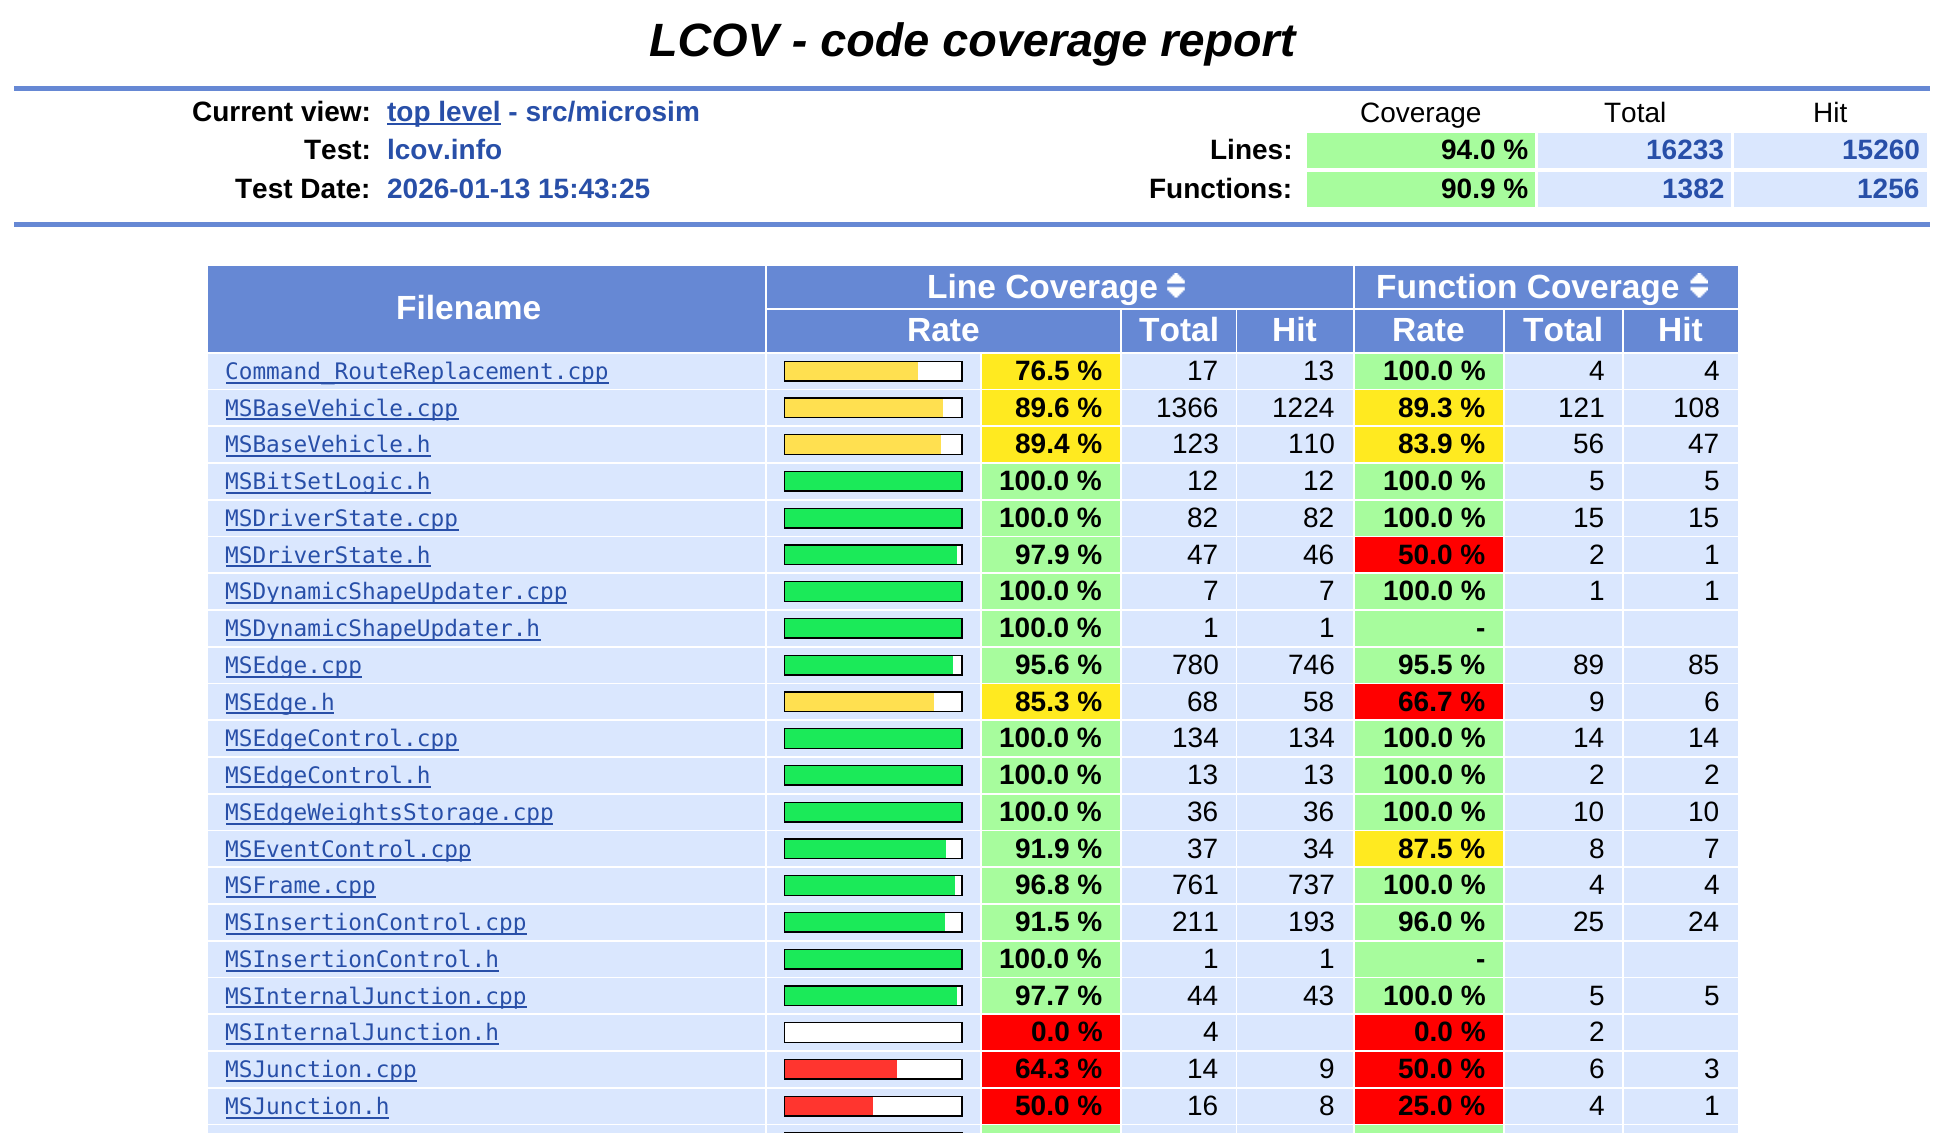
#include <cairo.h>
#include <math.h>
#include <stddef.h>


static void rgb(cairo_t *cr, int r, int g, int b)
{
	cairo_set_source_rgb(cr, r / 255.0, g / 255.0, b / 255.0);
}

static void face(cairo_t *cr, const char *family, double size, int italic, int bold)
{
	cairo_select_font_face(cr, family, italic ? CAIRO_FONT_SLANT_ITALIC : CAIRO_FONT_SLANT_NORMAL,
		bold ? CAIRO_FONT_WEIGHT_BOLD : CAIRO_FONT_WEIGHT_NORMAL);
	cairo_set_font_size(cr, size);
}

static void label(cairo_t *cr, double x, double y, const char *s)
{
	cairo_move_to(cr, x, y);
	cairo_show_text(cr, s);
}

static void rect(cairo_t *cr, double x, double y, double w, double h)
{
	cairo_rectangle(cr, x, y, w, h);
	cairo_fill(cr);
}

static void image(cairo_t *cr, const char *path, double x, double y, double w, double h)
{
	cairo_surface_t *image = cairo_image_surface_create_from_png(path);
	cairo_save(cr);
	cairo_set_source_surface(cr, image, x, y);
	cairo_rectangle(cr, x, y, w, h);
	cairo_fill(cr);
	cairo_restore(cr);
	cairo_surface_destroy(image);
}

static void draw(cairo_t *cr) {
	rgb(cr, 255, 255, 255);
	cairo_paint(cr);
	face(cr, "Liberation Sans", 46.7, 1, 1);
	rgb(cr, 0, 0, 0);
	label(cr, 649, 56, "LCOV - code coverage report");
	rgb(cr, 102, 136, 212);
	rect(cr, 14, 86, 1916, 5);
	face(cr, "Liberation Sans", 28, 0, 1);
	rgb(cr, 0, 0, 0);
	label(cr, 192, 121, "Current view:");
	rgb(cr, 40, 79, 168);
	rect(cr, 387, 123, 114, 2);
	label(cr, 387, 121, "top level - src/microsim");
	face(cr, "Liberation Sans", 28, 0, 0);
	rgb(cr, 0, 0, 0);
	label(cr, 1360, 122, "Coverage");
	label(cr, 1604, 122, "Total");
	label(cr, 1813, 122, "Hit");
	face(cr, "Liberation Sans", 28, 0, 1);
	label(cr, 304, 159, "Test:");
	rgb(cr, 40, 79, 168);
	label(cr, 387, 159, "lcov.info");
	rgb(cr, 0, 0, 0);
	label(cr, 1210, 159, "Lines:");
	rgb(cr, 167, 252, 157);
	rect(cr, 1307, 133, 228, 35);
	rgb(cr, 0, 0, 0);
	label(cr, 1441, 159, "94.0 %");
	rgb(cr, 218, 231, 254);
	rect(cr, 1538, 133, 193, 35);
	rgb(cr, 40, 79, 168);
	label(cr, 1646, 159, "16233");
	rgb(cr, 218, 231, 254);
	rect(cr, 1734, 133, 193, 35);
	rgb(cr, 40, 79, 168);
	label(cr, 1842, 159, "15260");
	rgb(cr, 0, 0, 0);
	label(cr, 235, 198, "Test Date:");
	rgb(cr, 40, 79, 168);
	label(cr, 387, 198, "2026-01-13 15:43:25");
	rgb(cr, 0, 0, 0);
	label(cr, 1149, 198, "Functions:");
	rgb(cr, 167, 252, 157);
	rect(cr, 1307, 172, 228, 35);
	rgb(cr, 0, 0, 0);
	label(cr, 1441, 198, "90.9 %");
	rgb(cr, 218, 231, 254);
	rect(cr, 1538, 172, 193, 35);
	rgb(cr, 40, 79, 168);
	label(cr, 1662, 198, "1382");
	rgb(cr, 218, 231, 254);
	rect(cr, 1734, 172, 193, 35);
	rgb(cr, 40, 79, 168);
	label(cr, 1857, 198, "1256");
	rgb(cr, 102, 136, 212);
	rect(cr, 14, 222, 1916, 5);
	rect(cr, 208, 266, 557, 86);
	face(cr, "Liberation Sans", 33.5, 0, 1);
	rgb(cr, 255, 255, 255);
	label(cr, 396, 319, "Filename");
	rgb(cr, 102, 136, 212);
	rect(cr, 767, 266, 586, 42);
	rgb(cr, 255, 255, 255);
	label(cr, 927, 298, "Line Coverage");
	image(cr, "image0.png", 1167, 273, 18, 25);
	rgb(cr, 102, 136, 212);
	rect(cr, 1355, 266, 383, 42);
	rgb(cr, 255, 255, 255);
	label(cr, 1376, 298, "Function Coverage");
	image(cr, "image1.png", 1690, 273, 18, 25);
	rgb(cr, 102, 136, 212);
	rect(cr, 767, 310, 353, 42);
	rgb(cr, 255, 255, 255);
	label(cr, 907, 341, "Rate");
	rgb(cr, 102, 136, 212);
	rect(cr, 1122, 310, 114, 42);
	rgb(cr, 255, 255, 255);
	label(cr, 1139, 341, "Total");
	rgb(cr, 102, 136, 212);
	rect(cr, 1237, 310, 116, 42);
	rgb(cr, 255, 255, 255);
	label(cr, 1272, 341, "Hit");
	rgb(cr, 102, 136, 212);
	rect(cr, 1355, 310, 148, 42);
	rgb(cr, 255, 255, 255);
	label(cr, 1392, 341, "Rate");
	rgb(cr, 102, 136, 212);
	rect(cr, 1505, 310, 117, 42);
	rgb(cr, 255, 255, 255);
	label(cr, 1523, 341, "Total");
	rgb(cr, 102, 136, 212);
	rect(cr, 1624, 310, 114, 42);
	rgb(cr, 255, 255, 255);
	label(cr, 1658, 341, "Hit");
	rgb(cr, 218, 231, 254);
	rect(cr, 208, 354, 557, 35);
	rgb(cr, 40, 79, 168);
	rect(cr, 226, 382, 383, 2);
	face(cr, "DejaVu Sans Mono", 22.75, 0, 0);
	label(cr, 225, 379, "Command_RouteReplacement.cpp");
	rgb(cr, 218, 231, 254);
	rect(cr, 767, 354, 213, 35);
	rgb(cr, 0, 0, 0);
	rect(cr, 784, 361, 179, 21);
	rgb(cr, 255, 224, 80);
	rect(cr, 785, 362, 133, 18);
	rgb(cr, 255, 255, 255);
	rect(cr, 918, 362, 43, 18);
	rgb(cr, 255, 234, 32);
	rect(cr, 982, 354, 138, 35);
	face(cr, "Liberation Sans", 28, 0, 1);
	rgb(cr, 0, 0, 0);
	label(cr, 1015, 380, "76.5 %");
	rgb(cr, 218, 231, 254);
	rect(cr, 1122, 354, 114, 35);
	face(cr, "Liberation Sans", 28, 0, 0);
	rgb(cr, 0, 0, 0);
	label(cr, 1187, 380, "17");
	rgb(cr, 218, 231, 254);
	rect(cr, 1237, 354, 116, 35);
	rgb(cr, 0, 0, 0);
	label(cr, 1303, 380, "13");
	rgb(cr, 167, 252, 157);
	rect(cr, 1355, 354, 148, 35);
	face(cr, "Liberation Sans", 28, 0, 1);
	rgb(cr, 0, 0, 0);
	label(cr, 1383, 380, "100.0 %");
	rgb(cr, 218, 231, 254);
	rect(cr, 1505, 354, 117, 35);
	face(cr, "Liberation Sans", 28, 0, 0);
	rgb(cr, 0, 0, 0);
	label(cr, 1589, 380, "4");
	rgb(cr, 218, 231, 254);
	rect(cr, 1624, 354, 114, 35);
	rgb(cr, 0, 0, 0);
	label(cr, 1704, 380, "4");
	rgb(cr, 218, 231, 254);
	rect(cr, 208, 390, 557, 35);
	rgb(cr, 40, 79, 168);
	rect(cr, 226, 418, 233, 2);
	face(cr, "DejaVu Sans Mono", 22.75, 0, 0);
	label(cr, 225, 416, "MSBaseVehicle.cpp");
	rgb(cr, 218, 231, 254);
	rect(cr, 767, 390, 213, 35);
	rgb(cr, 0, 0, 0);
	rect(cr, 784, 397, 179, 21);
	rgb(cr, 255, 224, 80);
	rect(cr, 785, 399, 158, 18);
	rgb(cr, 255, 255, 255);
	rect(cr, 943, 399, 18, 18);
	rgb(cr, 255, 234, 32);
	rect(cr, 982, 390, 138, 35);
	face(cr, "Liberation Sans", 28, 0, 1);
	rgb(cr, 0, 0, 0);
	label(cr, 1015, 417, "89.6 %");
	rgb(cr, 218, 231, 254);
	rect(cr, 1122, 390, 114, 35);
	face(cr, "Liberation Sans", 28, 0, 0);
	rgb(cr, 0, 0, 0);
	label(cr, 1156, 417, "1366");
	rgb(cr, 218, 231, 254);
	rect(cr, 1237, 390, 116, 35);
	rgb(cr, 0, 0, 0);
	label(cr, 1272, 417, "1224");
	rgb(cr, 255, 234, 32);
	rect(cr, 1355, 390, 148, 35);
	face(cr, "Liberation Sans", 28, 0, 1);
	rgb(cr, 0, 0, 0);
	label(cr, 1398, 417, "89.3 %");
	rgb(cr, 218, 231, 254);
	rect(cr, 1505, 390, 117, 35);
	face(cr, "Liberation Sans", 28, 0, 0);
	rgb(cr, 0, 0, 0);
	label(cr, 1558, 417, "121");
	rgb(cr, 218, 231, 254);
	rect(cr, 1624, 390, 114, 35);
	rgb(cr, 0, 0, 0);
	label(cr, 1673, 417, "108");
	rgb(cr, 218, 231, 254);
	rect(cr, 208, 427, 557, 35);
	face(cr, "DejaVu Sans Mono", 22.75, 0, 0);
	rgb(cr, 40, 79, 168);
	label(cr, 225, 452, "MSBaseVehicle.h");
	rect(cr, 226, 455, 205, 2);
	rgb(cr, 218, 231, 254);
	rect(cr, 767, 427, 213, 35);
	rgb(cr, 0, 0, 0);
	rect(cr, 784, 434, 179, 21);
	rgb(cr, 255, 224, 80);
	rect(cr, 785, 435, 156, 19);
	rgb(cr, 255, 255, 255);
	rect(cr, 941, 435, 20, 19);
	rgb(cr, 255, 234, 32);
	rect(cr, 982, 427, 138, 35);
	face(cr, "Liberation Sans", 28, 0, 1);
	rgb(cr, 0, 0, 0);
	label(cr, 1015, 453, "89.4 %");
	rgb(cr, 218, 231, 254);
	rect(cr, 1122, 427, 114, 35);
	face(cr, "Liberation Sans", 28, 0, 0);
	rgb(cr, 0, 0, 0);
	label(cr, 1172, 453, "123");
	rgb(cr, 218, 231, 254);
	rect(cr, 1237, 427, 116, 35);
	rgb(cr, 0, 0, 0);
	label(cr, 1288, 453, "110");
	rgb(cr, 255, 234, 32);
	rect(cr, 1355, 427, 148, 35);
	face(cr, "Liberation Sans", 28, 0, 1);
	rgb(cr, 0, 0, 0);
	label(cr, 1398, 453, "83.9 %");
	rgb(cr, 218, 231, 254);
	rect(cr, 1505, 427, 117, 35);
	face(cr, "Liberation Sans", 28, 0, 0);
	rgb(cr, 0, 0, 0);
	label(cr, 1573, 453, "56");
	rgb(cr, 218, 231, 254);
	rect(cr, 1624, 427, 114, 35);
	rgb(cr, 0, 0, 0);
	label(cr, 1688, 453, "47");
	rgb(cr, 218, 231, 254);
	rect(cr, 208, 464, 557, 35);
	rgb(cr, 40, 79, 168);
	rect(cr, 226, 492, 205, 2);
	face(cr, "DejaVu Sans Mono", 22.75, 0, 0);
	label(cr, 225, 489, "MSBitSetLogic.h");
	rgb(cr, 218, 231, 254);
	rect(cr, 767, 464, 213, 35);
	rgb(cr, 0, 0, 0);
	rect(cr, 784, 471, 179, 21);
	rgb(cr, 27, 234, 89);
	rect(cr, 785, 472, 176, 18);
	rgb(cr, 167, 252, 157);
	rect(cr, 982, 464, 138, 35);
	face(cr, "Liberation Sans", 28, 0, 1);
	rgb(cr, 0, 0, 0);
	label(cr, 999, 490, "100.0 %");
	rgb(cr, 218, 231, 254);
	rect(cr, 1122, 464, 114, 35);
	face(cr, "Liberation Sans", 28, 0, 0);
	rgb(cr, 0, 0, 0);
	label(cr, 1187, 490, "12");
	rgb(cr, 218, 231, 254);
	rect(cr, 1237, 464, 116, 35);
	rgb(cr, 0, 0, 0);
	label(cr, 1303, 490, "12");
	rgb(cr, 167, 252, 157);
	rect(cr, 1355, 464, 148, 35);
	face(cr, "Liberation Sans", 28, 0, 1);
	rgb(cr, 0, 0, 0);
	label(cr, 1383, 490, "100.0 %");
	rgb(cr, 218, 231, 254);
	rect(cr, 1505, 464, 117, 35);
	face(cr, "Liberation Sans", 28, 0, 0);
	rgb(cr, 0, 0, 0);
	label(cr, 1589, 490, "5");
	rgb(cr, 218, 231, 254);
	rect(cr, 1624, 464, 114, 35);
	rgb(cr, 0, 0, 0);
	label(cr, 1704, 490, "5");
	rgb(cr, 218, 231, 254);
	rect(cr, 208, 501, 557, 35);
	rgb(cr, 40, 79, 168);
	rect(cr, 226, 529, 233, 2);
	face(cr, "DejaVu Sans Mono", 22.75, 0, 0);
	label(cr, 225, 526, "MSDriverState.cpp");
	rgb(cr, 218, 231, 254);
	rect(cr, 767, 501, 213, 35);
	rgb(cr, 0, 0, 0);
	rect(cr, 784, 508, 179, 21);
	rgb(cr, 27, 234, 89);
	rect(cr, 785, 509, 176, 18);
	rgb(cr, 167, 252, 157);
	rect(cr, 982, 501, 138, 35);
	face(cr, "Liberation Sans", 28, 0, 1);
	rgb(cr, 0, 0, 0);
	label(cr, 999, 527, "100.0 %");
	rgb(cr, 218, 231, 254);
	rect(cr, 1122, 501, 114, 35);
	face(cr, "Liberation Sans", 28, 0, 0);
	rgb(cr, 0, 0, 0);
	label(cr, 1187, 527, "82");
	rgb(cr, 218, 231, 254);
	rect(cr, 1237, 501, 116, 35);
	rgb(cr, 0, 0, 0);
	label(cr, 1303, 527, "82");
	rgb(cr, 167, 252, 157);
	rect(cr, 1355, 501, 148, 35);
	face(cr, "Liberation Sans", 28, 0, 1);
	rgb(cr, 0, 0, 0);
	label(cr, 1383, 527, "100.0 %");
	rgb(cr, 218, 231, 254);
	rect(cr, 1505, 501, 117, 35);
	face(cr, "Liberation Sans", 28, 0, 0);
	rgb(cr, 0, 0, 0);
	label(cr, 1573, 527, "15");
	rgb(cr, 218, 231, 254);
	rect(cr, 1624, 501, 114, 35);
	rgb(cr, 0, 0, 0);
	label(cr, 1688, 527, "15");
	rgb(cr, 218, 231, 254);
	rect(cr, 208, 537, 557, 35);
	face(cr, "DejaVu Sans Mono", 22.75, 0, 0);
	rgb(cr, 40, 79, 168);
	label(cr, 225, 563, "MSDriverState.h");
	rect(cr, 226, 565, 205, 2);
	rgb(cr, 218, 231, 254);
	rect(cr, 767, 537, 213, 35);
	rgb(cr, 0, 0, 0);
	rect(cr, 784, 544, 179, 21);
	rgb(cr, 27, 234, 89);
	rect(cr, 785, 546, 172, 18);
	rgb(cr, 255, 255, 255);
	rect(cr, 957, 546, 4, 18);
	rgb(cr, 167, 252, 157);
	rect(cr, 982, 537, 138, 35);
	face(cr, "Liberation Sans", 28, 0, 1);
	rgb(cr, 0, 0, 0);
	label(cr, 1015, 564, "97.9 %");
	rgb(cr, 218, 231, 254);
	rect(cr, 1122, 537, 114, 35);
	face(cr, "Liberation Sans", 28, 0, 0);
	rgb(cr, 0, 0, 0);
	label(cr, 1187, 564, "47");
	rgb(cr, 218, 231, 254);
	rect(cr, 1237, 537, 116, 35);
	rgb(cr, 0, 0, 0);
	label(cr, 1303, 564, "46");
	rgb(cr, 255, 0, 0);
	rect(cr, 1355, 537, 148, 35);
	face(cr, "Liberation Sans", 28, 0, 1);
	rgb(cr, 0, 0, 0);
	label(cr, 1398, 564, "50.0 %");
	rgb(cr, 218, 231, 254);
	rect(cr, 1505, 537, 117, 35);
	face(cr, "Liberation Sans", 28, 0, 0);
	rgb(cr, 0, 0, 0);
	label(cr, 1589, 564, "2");
	rgb(cr, 218, 231, 254);
	rect(cr, 1624, 537, 114, 35);
	rgb(cr, 0, 0, 0);
	label(cr, 1704, 564, "1");
	rgb(cr, 218, 231, 254);
	rect(cr, 208, 574, 557, 35);
	rgb(cr, 40, 79, 168);
	rect(cr, 226, 602, 341, 2);
	face(cr, "DejaVu Sans Mono", 22.75, 0, 0);
	label(cr, 225, 599, "MSDynamicShapeUpdater.cpp");
	rgb(cr, 218, 231, 254);
	rect(cr, 767, 574, 213, 35);
	rgb(cr, 0, 0, 0);
	rect(cr, 784, 581, 179, 21);
	rgb(cr, 27, 234, 89);
	rect(cr, 785, 582, 176, 19);
	rgb(cr, 167, 252, 157);
	rect(cr, 982, 574, 138, 35);
	face(cr, "Liberation Sans", 28, 0, 1);
	rgb(cr, 0, 0, 0);
	label(cr, 999, 600, "100.0 %");
	rgb(cr, 218, 231, 254);
	rect(cr, 1122, 574, 114, 35);
	face(cr, "Liberation Sans", 28, 0, 0);
	rgb(cr, 0, 0, 0);
	label(cr, 1203, 600, "7");
	rgb(cr, 218, 231, 254);
	rect(cr, 1237, 574, 116, 35);
	rgb(cr, 0, 0, 0);
	label(cr, 1319, 600, "7");
	rgb(cr, 167, 252, 157);
	rect(cr, 1355, 574, 148, 35);
	face(cr, "Liberation Sans", 28, 0, 1);
	rgb(cr, 0, 0, 0);
	label(cr, 1383, 600, "100.0 %");
	rgb(cr, 218, 231, 254);
	rect(cr, 1505, 574, 117, 35);
	face(cr, "Liberation Sans", 28, 0, 0);
	rgb(cr, 0, 0, 0);
	label(cr, 1589, 600, "1");
	rgb(cr, 218, 231, 254);
	rect(cr, 1624, 574, 114, 35);
	rgb(cr, 0, 0, 0);
	label(cr, 1704, 600, "1");
	rgb(cr, 218, 231, 254);
	rect(cr, 208, 611, 557, 35);
	rgb(cr, 40, 79, 168);
	rect(cr, 226, 639, 315, 2);
	face(cr, "DejaVu Sans Mono", 22.75, 0, 0);
	label(cr, 225, 636, "MSDynamicShapeUpdater.h");
	rgb(cr, 218, 231, 254);
	rect(cr, 767, 611, 213, 35);
	rgb(cr, 0, 0, 0);
	rect(cr, 784, 618, 179, 21);
	rgb(cr, 27, 234, 89);
	rect(cr, 785, 619, 176, 18);
	rgb(cr, 167, 252, 157);
	rect(cr, 982, 611, 138, 35);
	face(cr, "Liberation Sans", 28, 0, 1);
	rgb(cr, 0, 0, 0);
	label(cr, 999, 637, "100.0 %");
	rgb(cr, 218, 231, 254);
	rect(cr, 1122, 611, 114, 35);
	face(cr, "Liberation Sans", 28, 0, 0);
	rgb(cr, 0, 0, 0);
	label(cr, 1203, 637, "1");
	rgb(cr, 218, 231, 254);
	rect(cr, 1237, 611, 116, 35);
	rgb(cr, 0, 0, 0);
	label(cr, 1319, 637, "1");
	rgb(cr, 167, 252, 157);
	rect(cr, 1355, 611, 148, 35);
	face(cr, "Liberation Sans", 28, 0, 1);
	rgb(cr, 0, 0, 0);
	label(cr, 1476, 637, "-");
	rgb(cr, 218, 231, 254);
	rect(cr, 1505, 611, 117, 35);
	rect(cr, 1624, 611, 114, 35);
	rect(cr, 208, 648, 557, 35);
	rgb(cr, 40, 79, 168);
	rect(cr, 226, 676, 136, 2);
	face(cr, "DejaVu Sans Mono", 22.75, 0, 0);
	label(cr, 225, 673, "MSEdge.cpp");
	rgb(cr, 218, 231, 254);
	rect(cr, 767, 648, 213, 35);
	rgb(cr, 0, 0, 0);
	rect(cr, 784, 655, 179, 21);
	rgb(cr, 27, 234, 89);
	rect(cr, 785, 656, 168, 18);
	rgb(cr, 255, 255, 255);
	rect(cr, 953, 656, 8, 18);
	rgb(cr, 167, 252, 157);
	rect(cr, 982, 648, 138, 35);
	face(cr, "Liberation Sans", 28, 0, 1);
	rgb(cr, 0, 0, 0);
	label(cr, 1015, 674, "95.6 %");
	rgb(cr, 218, 231, 254);
	rect(cr, 1122, 648, 114, 35);
	face(cr, "Liberation Sans", 28, 0, 0);
	rgb(cr, 0, 0, 0);
	label(cr, 1172, 674, "780");
	rgb(cr, 218, 231, 254);
	rect(cr, 1237, 648, 116, 35);
	rgb(cr, 0, 0, 0);
	label(cr, 1288, 674, "746");
	rgb(cr, 167, 252, 157);
	rect(cr, 1355, 648, 148, 35);
	face(cr, "Liberation Sans", 28, 0, 1);
	rgb(cr, 0, 0, 0);
	label(cr, 1398, 674, "95.5 %");
	rgb(cr, 218, 231, 254);
	rect(cr, 1505, 648, 117, 35);
	face(cr, "Liberation Sans", 28, 0, 0);
	rgb(cr, 0, 0, 0);
	label(cr, 1573, 674, "89");
	rgb(cr, 218, 231, 254);
	rect(cr, 1624, 648, 114, 35);
	rgb(cr, 0, 0, 0);
	label(cr, 1688, 674, "85");
	rgb(cr, 218, 231, 254);
	rect(cr, 208, 684, 557, 35);
	rgb(cr, 40, 79, 168);
	rect(cr, 226, 712, 108, 2);
	face(cr, "DejaVu Sans Mono", 22.75, 0, 0);
	label(cr, 225, 710, "MSEdge.h");
	rgb(cr, 218, 231, 254);
	rect(cr, 767, 684, 213, 35);
	rgb(cr, 0, 0, 0);
	rect(cr, 784, 691, 179, 21);
	rgb(cr, 255, 224, 80);
	rect(cr, 785, 693, 149, 18);
	rgb(cr, 255, 255, 255);
	rect(cr, 934, 693, 27, 18);
	rgb(cr, 255, 234, 32);
	rect(cr, 982, 684, 138, 35);
	face(cr, "Liberation Sans", 28, 0, 1);
	rgb(cr, 0, 0, 0);
	label(cr, 1015, 711, "85.3 %");
	rgb(cr, 218, 231, 254);
	rect(cr, 1122, 684, 114, 35);
	face(cr, "Liberation Sans", 28, 0, 0);
	rgb(cr, 0, 0, 0);
	label(cr, 1187, 711, "68");
	rgb(cr, 218, 231, 254);
	rect(cr, 1237, 684, 116, 35);
	rgb(cr, 0, 0, 0);
	label(cr, 1303, 711, "58");
	rgb(cr, 255, 0, 0);
	rect(cr, 1355, 684, 148, 35);
	face(cr, "Liberation Sans", 28, 0, 1);
	rgb(cr, 0, 0, 0);
	label(cr, 1398, 711, "66.7 %");
	rgb(cr, 218, 231, 254);
	rect(cr, 1505, 684, 117, 35);
	face(cr, "Liberation Sans", 28, 0, 0);
	rgb(cr, 0, 0, 0);
	label(cr, 1589, 711, "9");
	rgb(cr, 218, 231, 254);
	rect(cr, 1624, 684, 114, 35);
	rgb(cr, 0, 0, 0);
	label(cr, 1704, 711, "6");
	rgb(cr, 218, 231, 254);
	rect(cr, 208, 721, 557, 35);
	rgb(cr, 40, 79, 168);
	rect(cr, 226, 749, 233, 2);
	face(cr, "DejaVu Sans Mono", 22.75, 0, 0);
	label(cr, 225, 746, "MSEdgeControl.cpp");
	rgb(cr, 218, 231, 254);
	rect(cr, 767, 721, 213, 35);
	rgb(cr, 0, 0, 0);
	rect(cr, 784, 728, 179, 21);
	rgb(cr, 27, 234, 89);
	rect(cr, 785, 729, 176, 19);
	rgb(cr, 167, 252, 157);
	rect(cr, 982, 721, 138, 35);
	face(cr, "Liberation Sans", 28, 0, 1);
	rgb(cr, 0, 0, 0);
	label(cr, 999, 747, "100.0 %");
	rgb(cr, 218, 231, 254);
	rect(cr, 1122, 721, 114, 35);
	face(cr, "Liberation Sans", 28, 0, 0);
	rgb(cr, 0, 0, 0);
	label(cr, 1172, 747, "134");
	rgb(cr, 218, 231, 254);
	rect(cr, 1237, 721, 116, 35);
	rgb(cr, 0, 0, 0);
	label(cr, 1288, 747, "134");
	rgb(cr, 167, 252, 157);
	rect(cr, 1355, 721, 148, 35);
	face(cr, "Liberation Sans", 28, 0, 1);
	rgb(cr, 0, 0, 0);
	label(cr, 1383, 747, "100.0 %");
	rgb(cr, 218, 231, 254);
	rect(cr, 1505, 721, 117, 35);
	face(cr, "Liberation Sans", 28, 0, 0);
	rgb(cr, 0, 0, 0);
	label(cr, 1573, 747, "14");
	rgb(cr, 218, 231, 254);
	rect(cr, 1624, 721, 114, 35);
	rgb(cr, 0, 0, 0);
	label(cr, 1688, 747, "14");
	rgb(cr, 218, 231, 254);
	rect(cr, 208, 758, 557, 35);
	rgb(cr, 40, 79, 168);
	rect(cr, 226, 786, 205, 2);
	face(cr, "DejaVu Sans Mono", 22.75, 0, 0);
	label(cr, 225, 783, "MSEdgeControl.h");
	rgb(cr, 218, 231, 254);
	rect(cr, 767, 758, 213, 35);
	rgb(cr, 0, 0, 0);
	rect(cr, 784, 765, 179, 21);
	rgb(cr, 27, 234, 89);
	rect(cr, 785, 766, 176, 18);
	rgb(cr, 167, 252, 157);
	rect(cr, 982, 758, 138, 35);
	face(cr, "Liberation Sans", 28, 0, 1);
	rgb(cr, 0, 0, 0);
	label(cr, 999, 784, "100.0 %");
	rgb(cr, 218, 231, 254);
	rect(cr, 1122, 758, 114, 35);
	face(cr, "Liberation Sans", 28, 0, 0);
	rgb(cr, 0, 0, 0);
	label(cr, 1187, 784, "13");
	rgb(cr, 218, 231, 254);
	rect(cr, 1237, 758, 116, 35);
	rgb(cr, 0, 0, 0);
	label(cr, 1303, 784, "13");
	rgb(cr, 167, 252, 157);
	rect(cr, 1355, 758, 148, 35);
	face(cr, "Liberation Sans", 28, 0, 1);
	rgb(cr, 0, 0, 0);
	label(cr, 1383, 784, "100.0 %");
	rgb(cr, 218, 231, 254);
	rect(cr, 1505, 758, 117, 35);
	face(cr, "Liberation Sans", 28, 0, 0);
	rgb(cr, 0, 0, 0);
	label(cr, 1589, 784, "2");
	rgb(cr, 218, 231, 254);
	rect(cr, 1624, 758, 114, 35);
	rgb(cr, 0, 0, 0);
	label(cr, 1704, 784, "2");
	rgb(cr, 218, 231, 254);
	rect(cr, 208, 795, 557, 35);
	rgb(cr, 40, 79, 168);
	rect(cr, 226, 823, 327, 2);
	face(cr, "DejaVu Sans Mono", 22.75, 0, 0);
	label(cr, 225, 820, "MSEdgeWeightsStorage.cpp");
	rgb(cr, 218, 231, 254);
	rect(cr, 767, 795, 213, 35);
	rgb(cr, 0, 0, 0);
	rect(cr, 784, 802, 179, 21);
	rgb(cr, 27, 234, 89);
	rect(cr, 785, 803, 176, 18);
	rgb(cr, 167, 252, 157);
	rect(cr, 982, 795, 138, 35);
	face(cr, "Liberation Sans", 28, 0, 1);
	rgb(cr, 0, 0, 0);
	label(cr, 999, 821, "100.0 %");
	rgb(cr, 218, 231, 254);
	rect(cr, 1122, 795, 114, 35);
	face(cr, "Liberation Sans", 28, 0, 0);
	rgb(cr, 0, 0, 0);
	label(cr, 1187, 821, "36");
	rgb(cr, 218, 231, 254);
	rect(cr, 1237, 795, 116, 35);
	rgb(cr, 0, 0, 0);
	label(cr, 1303, 821, "36");
	rgb(cr, 167, 252, 157);
	rect(cr, 1355, 795, 148, 35);
	face(cr, "Liberation Sans", 28, 0, 1);
	rgb(cr, 0, 0, 0);
	label(cr, 1383, 821, "100.0 %");
	rgb(cr, 218, 231, 254);
	rect(cr, 1505, 795, 117, 35);
	face(cr, "Liberation Sans", 28, 0, 0);
	rgb(cr, 0, 0, 0);
	label(cr, 1573, 821, "10");
	rgb(cr, 218, 231, 254);
	rect(cr, 1624, 795, 114, 35);
	rgb(cr, 0, 0, 0);
	label(cr, 1688, 821, "10");
	rgb(cr, 218, 231, 254);
	rect(cr, 208, 831, 557, 35);
	rgb(cr, 40, 79, 168);
	rect(cr, 226, 859, 245, 2);
	face(cr, "DejaVu Sans Mono", 22.75, 0, 0);
	label(cr, 225, 857, "MSEventControl.cpp");
	rgb(cr, 218, 231, 254);
	rect(cr, 767, 831, 213, 35);
	rgb(cr, 0, 0, 0);
	rect(cr, 784, 838, 179, 21);
	rgb(cr, 27, 234, 89);
	rect(cr, 785, 840, 161, 18);
	rgb(cr, 255, 255, 255);
	rect(cr, 946, 840, 15, 18);
	rgb(cr, 167, 252, 157);
	rect(cr, 982, 831, 138, 35);
	face(cr, "Liberation Sans", 28, 0, 1);
	rgb(cr, 0, 0, 0);
	label(cr, 1015, 858, "91.9 %");
	rgb(cr, 218, 231, 254);
	rect(cr, 1122, 831, 114, 35);
	face(cr, "Liberation Sans", 28, 0, 0);
	rgb(cr, 0, 0, 0);
	label(cr, 1187, 858, "37");
	rgb(cr, 218, 231, 254);
	rect(cr, 1237, 831, 116, 35);
	rgb(cr, 0, 0, 0);
	label(cr, 1303, 858, "34");
	rgb(cr, 255, 234, 32);
	rect(cr, 1355, 831, 148, 35);
	face(cr, "Liberation Sans", 28, 0, 1);
	rgb(cr, 0, 0, 0);
	label(cr, 1398, 858, "87.5 %");
	rgb(cr, 218, 231, 254);
	rect(cr, 1505, 831, 117, 35);
	face(cr, "Liberation Sans", 28, 0, 0);
	rgb(cr, 0, 0, 0);
	label(cr, 1589, 858, "8");
	rgb(cr, 218, 231, 254);
	rect(cr, 1624, 831, 114, 35);
	rgb(cr, 0, 0, 0);
	label(cr, 1704, 858, "7");
	rgb(cr, 218, 231, 254);
	rect(cr, 208, 868, 557, 35);
	rgb(cr, 40, 79, 168);
	rect(cr, 226, 896, 150, 2);
	face(cr, "DejaVu Sans Mono", 22.75, 0, 0);
	label(cr, 225, 893, "MSFrame.cpp");
	rgb(cr, 218, 231, 254);
	rect(cr, 767, 868, 213, 35);
	rgb(cr, 0, 0, 0);
	rect(cr, 784, 875, 179, 21);
	rgb(cr, 27, 234, 89);
	rect(cr, 785, 876, 170, 19);
	rgb(cr, 255, 255, 255);
	rect(cr, 955, 876, 6, 19);
	rgb(cr, 167, 252, 157);
	rect(cr, 982, 868, 138, 35);
	face(cr, "Liberation Sans", 28, 0, 1);
	rgb(cr, 0, 0, 0);
	label(cr, 1015, 894, "96.8 %");
	rgb(cr, 218, 231, 254);
	rect(cr, 1122, 868, 114, 35);
	face(cr, "Liberation Sans", 28, 0, 0);
	rgb(cr, 0, 0, 0);
	label(cr, 1172, 894, "761");
	rgb(cr, 218, 231, 254);
	rect(cr, 1237, 868, 116, 35);
	rgb(cr, 0, 0, 0);
	label(cr, 1288, 894, "737");
	rgb(cr, 167, 252, 157);
	rect(cr, 1355, 868, 148, 35);
	face(cr, "Liberation Sans", 28, 0, 1);
	rgb(cr, 0, 0, 0);
	label(cr, 1383, 894, "100.0 %");
	rgb(cr, 218, 231, 254);
	rect(cr, 1505, 868, 117, 35);
	face(cr, "Liberation Sans", 28, 0, 0);
	rgb(cr, 0, 0, 0);
	label(cr, 1589, 894, "4");
	rgb(cr, 218, 231, 254);
	rect(cr, 1624, 868, 114, 35);
	rgb(cr, 0, 0, 0);
	label(cr, 1704, 894, "4");
	rgb(cr, 218, 231, 254);
	rect(cr, 208, 905, 557, 35);
	rgb(cr, 40, 79, 168);
	rect(cr, 226, 933, 301, 2);
	face(cr, "DejaVu Sans Mono", 22.75, 0, 0);
	label(cr, 225, 930, "MSInsertionControl.cpp");
	rgb(cr, 218, 231, 254);
	rect(cr, 767, 905, 213, 35);
	rgb(cr, 0, 0, 0);
	rect(cr, 784, 912, 179, 21);
	rgb(cr, 27, 234, 89);
	rect(cr, 785, 913, 160, 18);
	rgb(cr, 255, 255, 255);
	rect(cr, 945, 913, 16, 18);
	rgb(cr, 167, 252, 157);
	rect(cr, 982, 905, 138, 35);
	face(cr, "Liberation Sans", 28, 0, 1);
	rgb(cr, 0, 0, 0);
	label(cr, 1015, 931, "91.5 %");
	rgb(cr, 218, 231, 254);
	rect(cr, 1122, 905, 114, 35);
	face(cr, "Liberation Sans", 28, 0, 0);
	rgb(cr, 0, 0, 0);
	label(cr, 1172, 931, "211");
	rgb(cr, 218, 231, 254);
	rect(cr, 1237, 905, 116, 35);
	rgb(cr, 0, 0, 0);
	label(cr, 1288, 931, "193");
	rgb(cr, 167, 252, 157);
	rect(cr, 1355, 905, 148, 35);
	face(cr, "Liberation Sans", 28, 0, 1);
	rgb(cr, 0, 0, 0);
	label(cr, 1398, 931, "96.0 %");
	rgb(cr, 218, 231, 254);
	rect(cr, 1505, 905, 117, 35);
	face(cr, "Liberation Sans", 28, 0, 0);
	rgb(cr, 0, 0, 0);
	label(cr, 1573, 931, "25");
	rgb(cr, 218, 231, 254);
	rect(cr, 1624, 905, 114, 35);
	rgb(cr, 0, 0, 0);
	label(cr, 1688, 931, "24");
	rgb(cr, 218, 231, 254);
	rect(cr, 208, 942, 557, 35);
	face(cr, "DejaVu Sans Mono", 22.75, 0, 0);
	rgb(cr, 40, 79, 168);
	label(cr, 225, 967, "MSInsertionControl.h");
	rect(cr, 226, 970, 273, 2);
	rgb(cr, 218, 231, 254);
	rect(cr, 767, 942, 213, 35);
	rgb(cr, 0, 0, 0);
	rect(cr, 784, 949, 179, 21);
	rgb(cr, 27, 234, 89);
	rect(cr, 785, 950, 176, 18);
	rgb(cr, 167, 252, 157);
	rect(cr, 982, 942, 138, 35);
	face(cr, "Liberation Sans", 28, 0, 1);
	rgb(cr, 0, 0, 0);
	label(cr, 999, 968, "100.0 %");
	rgb(cr, 218, 231, 254);
	rect(cr, 1122, 942, 114, 35);
	face(cr, "Liberation Sans", 28, 0, 0);
	rgb(cr, 0, 0, 0);
	label(cr, 1203, 968, "1");
	rgb(cr, 218, 231, 254);
	rect(cr, 1237, 942, 116, 35);
	rgb(cr, 0, 0, 0);
	label(cr, 1319, 968, "1");
	rgb(cr, 167, 252, 157);
	rect(cr, 1355, 942, 148, 35);
	face(cr, "Liberation Sans", 28, 0, 1);
	rgb(cr, 0, 0, 0);
	label(cr, 1476, 968, "-");
	rgb(cr, 218, 231, 254);
	rect(cr, 1505, 942, 117, 35);
	rect(cr, 1624, 942, 114, 35);
	rect(cr, 208, 978, 557, 35);
	rgb(cr, 40, 79, 168);
	rect(cr, 226, 1006, 301, 2);
	face(cr, "DejaVu Sans Mono", 22.75, 0, 0);
	label(cr, 225, 1004, "MSInternalJunction.cpp");
	rgb(cr, 218, 231, 254);
	rect(cr, 767, 978, 213, 35);
	rgb(cr, 0, 0, 0);
	rect(cr, 784, 985, 179, 21);
	rgb(cr, 27, 234, 89);
	rect(cr, 785, 987, 172, 18);
	rgb(cr, 255, 255, 255);
	rect(cr, 957, 987, 4, 18);
	rgb(cr, 167, 252, 157);
	rect(cr, 982, 978, 138, 35);
	face(cr, "Liberation Sans", 28, 0, 1);
	rgb(cr, 0, 0, 0);
	label(cr, 1015, 1005, "97.7 %");
	rgb(cr, 218, 231, 254);
	rect(cr, 1122, 978, 114, 35);
	face(cr, "Liberation Sans", 28, 0, 0);
	rgb(cr, 0, 0, 0);
	label(cr, 1187, 1005, "44");
	rgb(cr, 218, 231, 254);
	rect(cr, 1237, 978, 116, 35);
	rgb(cr, 0, 0, 0);
	label(cr, 1303, 1005, "43");
	rgb(cr, 167, 252, 157);
	rect(cr, 1355, 978, 148, 35);
	face(cr, "Liberation Sans", 28, 0, 1);
	rgb(cr, 0, 0, 0);
	label(cr, 1383, 1005, "100.0 %");
	rgb(cr, 218, 231, 254);
	rect(cr, 1505, 978, 117, 35);
	face(cr, "Liberation Sans", 28, 0, 0);
	rgb(cr, 0, 0, 0);
	label(cr, 1589, 1005, "5");
	rgb(cr, 218, 231, 254);
	rect(cr, 1624, 978, 114, 35);
	rgb(cr, 0, 0, 0);
	label(cr, 1704, 1005, "5");
	rgb(cr, 218, 231, 254);
	rect(cr, 208, 1015, 557, 35);
	face(cr, "DejaVu Sans Mono", 22.75, 0, 0);
	rgb(cr, 40, 79, 168);
	label(cr, 225, 1040, "MSInternalJunction.h");
	rect(cr, 226, 1043, 273, 2);
	rgb(cr, 218, 231, 254);
	rect(cr, 767, 1015, 213, 35);
	rgb(cr, 0, 0, 0);
	rect(cr, 784, 1022, 179, 21);
	rgb(cr, 255, 255, 255);
	rect(cr, 785, 1023, 176, 19);
	rgb(cr, 255, 0, 0);
	rect(cr, 982, 1015, 138, 35);
	face(cr, "Liberation Sans", 28, 0, 1);
	rgb(cr, 0, 0, 0);
	label(cr, 1031, 1041, "0.0 %");
	rgb(cr, 218, 231, 254);
	rect(cr, 1122, 1015, 114, 35);
	face(cr, "Liberation Sans", 28, 0, 0);
	rgb(cr, 0, 0, 0);
	label(cr, 1203, 1041, "4");
	rgb(cr, 218, 231, 254);
	rect(cr, 1237, 1015, 116, 35);
	rgb(cr, 255, 0, 0);
	rect(cr, 1355, 1015, 148, 35);
	face(cr, "Liberation Sans", 28, 0, 1);
	rgb(cr, 0, 0, 0);
	label(cr, 1414, 1041, "0.0 %");
	rgb(cr, 218, 231, 254);
	rect(cr, 1505, 1015, 117, 35);
	face(cr, "Liberation Sans", 28, 0, 0);
	rgb(cr, 0, 0, 0);
	label(cr, 1589, 1041, "2");
	rgb(cr, 218, 231, 254);
	rect(cr, 1624, 1015, 114, 35);
	rect(cr, 208, 1052, 557, 35);
	rgb(cr, 40, 79, 168);
	rect(cr, 226, 1080, 191, 2);
	face(cr, "DejaVu Sans Mono", 22.75, 0, 0);
	label(cr, 225, 1077, "MSJunction.cpp");
	rgb(cr, 218, 231, 254);
	rect(cr, 767, 1052, 213, 35);
	rgb(cr, 0, 0, 0);
	rect(cr, 784, 1059, 179, 21);
	rgb(cr, 255, 53, 47);
	rect(cr, 785, 1060, 112, 18);
	rgb(cr, 255, 255, 255);
	rect(cr, 897, 1060, 64, 18);
	rgb(cr, 255, 0, 0);
	rect(cr, 982, 1052, 138, 35);
	face(cr, "Liberation Sans", 28, 0, 1);
	rgb(cr, 0, 0, 0);
	label(cr, 1015, 1078, "64.3 %");
	rgb(cr, 218, 231, 254);
	rect(cr, 1122, 1052, 114, 35);
	face(cr, "Liberation Sans", 28, 0, 0);
	rgb(cr, 0, 0, 0);
	label(cr, 1187, 1078, "14");
	rgb(cr, 218, 231, 254);
	rect(cr, 1237, 1052, 116, 35);
	rgb(cr, 0, 0, 0);
	label(cr, 1319, 1078, "9");
	rgb(cr, 255, 0, 0);
	rect(cr, 1355, 1052, 148, 35);
	face(cr, "Liberation Sans", 28, 0, 1);
	rgb(cr, 0, 0, 0);
	label(cr, 1398, 1078, "50.0 %");
	rgb(cr, 218, 231, 254);
	rect(cr, 1505, 1052, 117, 35);
	face(cr, "Liberation Sans", 28, 0, 0);
	rgb(cr, 0, 0, 0);
	label(cr, 1589, 1078, "6");
	rgb(cr, 218, 231, 254);
	rect(cr, 1624, 1052, 114, 35);
	rgb(cr, 0, 0, 0);
	label(cr, 1704, 1078, "3");
	rgb(cr, 218, 231, 254);
	rect(cr, 208, 1089, 557, 35);
	face(cr, "DejaVu Sans Mono", 22.75, 0, 0);
	rgb(cr, 40, 79, 168);
	label(cr, 225, 1114, "MSJunction.h");
	rect(cr, 226, 1117, 163, 2);
	rgb(cr, 218, 231, 254);
	rect(cr, 767, 1089, 213, 35);
	rgb(cr, 0, 0, 0);
	rect(cr, 784, 1096, 179, 21);
	rgb(cr, 255, 53, 47);
	rect(cr, 785, 1097, 88, 18);
	rgb(cr, 255, 255, 255);
	rect(cr, 873, 1097, 88, 18);
	rgb(cr, 255, 0, 0);
	rect(cr, 982, 1089, 138, 35);
	face(cr, "Liberation Sans", 28, 0, 1);
	rgb(cr, 0, 0, 0);
	label(cr, 1015, 1115, "50.0 %");
	rgb(cr, 218, 231, 254);
	rect(cr, 1122, 1089, 114, 35);
	face(cr, "Liberation Sans", 28, 0, 0);
	rgb(cr, 0, 0, 0);
	label(cr, 1187, 1115, "16");
	rgb(cr, 218, 231, 254);
	rect(cr, 1237, 1089, 116, 35);
	rgb(cr, 0, 0, 0);
	label(cr, 1319, 1115, "8");
	rgb(cr, 255, 0, 0);
	rect(cr, 1355, 1089, 148, 35);
	face(cr, "Liberation Sans", 28, 0, 1);
	rgb(cr, 0, 0, 0);
	label(cr, 1398, 1115, "25.0 %");
	rgb(cr, 218, 231, 254);
	rect(cr, 1505, 1089, 117, 35);
	face(cr, "Liberation Sans", 28, 0, 0);
	rgb(cr, 0, 0, 0);
	label(cr, 1589, 1115, "4");
	rgb(cr, 218, 231, 254);
	rect(cr, 1624, 1089, 114, 35);
	rgb(cr, 0, 0, 0);
	label(cr, 1704, 1115, "1");
	rgb(cr, 218, 231, 254);
	rect(cr, 208, 1125, 557, 8);
	rect(cr, 767, 1125, 213, 8);
	rgb(cr, 0, 0, 0);
	rect(cr, 784, 1132, 179, 1);
	rgb(cr, 167, 252, 157);
	rect(cr, 982, 1125, 138, 8);
	rgb(cr, 218, 231, 254);
	rect(cr, 1122, 1125, 114, 8);
	rect(cr, 1237, 1125, 116, 8);
	rgb(cr, 167, 252, 157);
	rect(cr, 1355, 1125, 148, 8);
	rgb(cr, 218, 231, 254);
	rect(cr, 1505, 1125, 117, 8);
	rect(cr, 1624, 1125, 114, 8);
}

int main(void) {
	cairo_surface_t *surface = cairo_image_surface_create(CAIRO_FORMAT_RGB24, 1944, 1133);
	cairo_t *cr = cairo_create(surface);
	cairo_font_options_t *options = cairo_font_options_create();
	cairo_font_options_set_hint_metrics(options, CAIRO_HINT_METRICS_OFF);
	cairo_font_options_set_hint_style(options, CAIRO_HINT_STYLE_NONE);
	cairo_set_font_options(cr, options);
	cairo_set_miter_limit(cr, 4);
	draw(cr);
	cairo_surface_write_to_png(surface, "render.png");
	cairo_font_options_destroy(options);
	cairo_destroy(cr);
	cairo_surface_destroy(surface);
	return 0;
}
